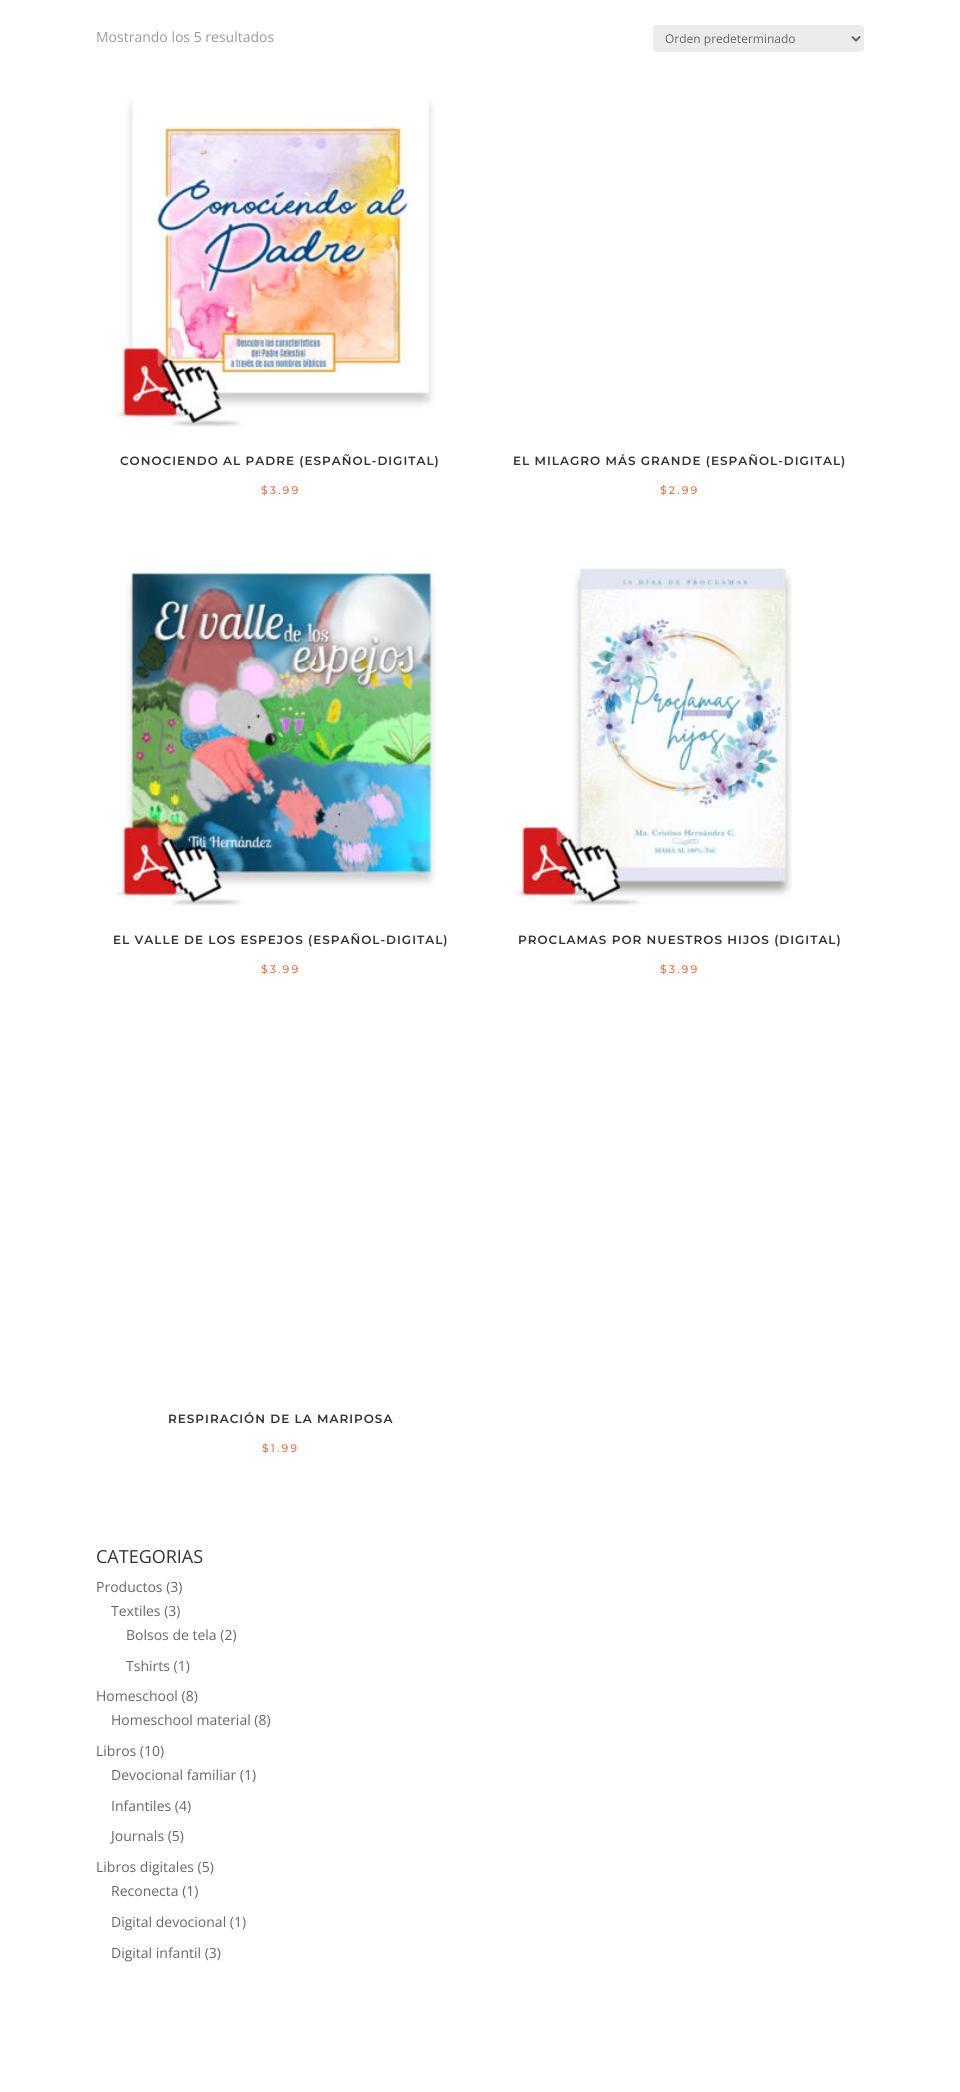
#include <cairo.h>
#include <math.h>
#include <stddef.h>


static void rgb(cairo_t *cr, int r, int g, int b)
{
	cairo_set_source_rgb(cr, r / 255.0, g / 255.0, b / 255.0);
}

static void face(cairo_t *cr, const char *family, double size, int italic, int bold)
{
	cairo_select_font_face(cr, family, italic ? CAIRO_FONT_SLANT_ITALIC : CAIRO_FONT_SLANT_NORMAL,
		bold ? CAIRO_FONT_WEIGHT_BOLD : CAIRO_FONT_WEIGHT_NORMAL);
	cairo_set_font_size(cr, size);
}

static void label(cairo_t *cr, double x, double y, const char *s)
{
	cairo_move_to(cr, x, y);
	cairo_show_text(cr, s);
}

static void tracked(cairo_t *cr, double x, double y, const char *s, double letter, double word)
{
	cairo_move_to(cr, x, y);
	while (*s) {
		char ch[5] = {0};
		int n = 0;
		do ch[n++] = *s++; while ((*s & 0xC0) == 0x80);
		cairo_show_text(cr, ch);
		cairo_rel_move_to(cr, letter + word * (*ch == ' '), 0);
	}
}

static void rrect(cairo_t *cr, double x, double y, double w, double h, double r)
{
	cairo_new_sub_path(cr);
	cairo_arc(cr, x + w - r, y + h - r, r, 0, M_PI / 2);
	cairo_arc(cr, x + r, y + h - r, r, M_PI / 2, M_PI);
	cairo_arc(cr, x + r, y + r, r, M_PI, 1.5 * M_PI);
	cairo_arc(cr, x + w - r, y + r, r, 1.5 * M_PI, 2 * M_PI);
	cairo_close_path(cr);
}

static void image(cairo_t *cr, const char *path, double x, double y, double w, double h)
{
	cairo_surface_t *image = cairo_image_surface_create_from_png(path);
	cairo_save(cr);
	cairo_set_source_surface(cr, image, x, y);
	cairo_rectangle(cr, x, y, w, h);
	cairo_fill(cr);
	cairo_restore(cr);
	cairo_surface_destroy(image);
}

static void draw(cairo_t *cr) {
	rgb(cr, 255, 255, 255);
	cairo_paint(cr);
	face(cr, "Open Sans", 14, 0, 0);
	rgb(cr, 153, 153, 153);
	label(cr, 96, 42, "Mostrando los 5 resultados");
	rgb(cr, 236, 236, 236);
	rrect(cr, 653, 25, 211, 27, 3);
	cairo_fill(cr);
	cairo_new_path(cr);
	cairo_move_to(cr, 852, 36.5);
	cairo_line_to(cr, 856, 40.5);
	cairo_line_to(cr, 860, 36.5);
	rgb(cr, 102, 102, 102);
	cairo_stroke(cr);
	face(cr, "Open Sans", 12, 0, 0);
	label(cr, 665, 43, "Orden predeterminado");
	image(cr, "image0.png", 116, 100, 319, 327);
	face(cr, "Montserrat Thin", 12, 0, 0);
	rgb(cr, 51, 51, 51);
	tracked(cr, 120, 465, "CONOCIENDO AL PADRE (ESPAÑOL-DIGITAL)", 1, 0);
	face(cr, "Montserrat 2 Thin", 11, 0, 0);
	rgb(cr, 239, 111, 73);
	tracked(cr, 261, 494, "$3.99", 2, 0);
	face(cr, "Montserrat Thin", 12, 0, 0);
	rgb(cr, 51, 51, 51);
	tracked(cr, 513, 465, "EL MILAGRO MÁS GRANDE (ESPAÑOL-DIGITAL)", 1, 0);
	face(cr, "Montserrat 2 Thin", 11, 0, 0);
	rgb(cr, 239, 111, 73);
	tracked(cr, 660, 494, "$2.99", 2, 0);
	image(cr, "image1.png", 116, 570, 320, 336);
	face(cr, "Montserrat Thin", 12, 0, 0);
	rgb(cr, 51, 51, 51);
	tracked(cr, 113, 944, "EL VALLE DE LOS ESPEJOS (ESPAÑOL-DIGITAL)", 1, 0);
	face(cr, "Montserrat 2 Thin", 11, 0, 0);
	rgb(cr, 239, 111, 73);
	tracked(cr, 261, 973, "$3.99", 2, 0);
	image(cr, "image2.png", 515, 568, 277, 338);
	face(cr, "Montserrat Thin", 12, 0, 0);
	rgb(cr, 51, 51, 51);
	tracked(cr, 518, 944, "PROCLAMAS POR NUESTROS HIJOS (DIGITAL)", 1, 0);
	face(cr, "Montserrat 2 Thin", 11, 0, 0);
	rgb(cr, 239, 111, 73);
	tracked(cr, 660, 973, "$3.99", 2, 0);
	face(cr, "Montserrat Thin", 12, 0, 0);
	rgb(cr, 51, 51, 51);
	tracked(cr, 168, 1423, "RESPIRACIÓN DE LA MARIPOSA", 1, 0);
	face(cr, "Montserrat 2 Thin", 11, 0, 0);
	rgb(cr, 239, 111, 73);
	tracked(cr, 262, 1452, "$1.99", 2, 0);
	face(cr, "Open Sans", 18, 0, 0);
	rgb(cr, 51, 51, 51);
	label(cr, 96, 1563, "CATEGORIAS");
	face(cr, "Open Sans", 14, 0, 0);
	rgb(cr, 102, 102, 102);
	label(cr, 96, 1592, "Productos (3)");
	label(cr, 111, 1616, "Textiles (3)");
	label(cr, 126, 1640, "Bolsos de tela (2)");
	label(cr, 126, 1671, "Tshirts (1)");
	label(cr, 96, 1701, "Homeschool (8)");
	label(cr, 111, 1725, "Homeschool material (8)");
	label(cr, 96, 1756, "Libros (10)");
	label(cr, 111, 1780, "Devocional familiar (1)");
	label(cr, 111, 1811, "Infantiles (4)");
	label(cr, 111, 1841, "Journals (5)");
	label(cr, 96, 1872, "Libros digitales (5)");
	label(cr, 111, 1896, "Reconecta (1)");
	label(cr, 111, 1927, "Digital devocional (1)");
	label(cr, 111, 1958, "Digital infantil (3)");
}

int main(void) {
	cairo_surface_t *surface = cairo_image_surface_create(CAIRO_FORMAT_RGB24, 960, 2092);
	cairo_t *cr = cairo_create(surface);
	cairo_font_options_t *options = cairo_font_options_create();
	cairo_font_options_set_hint_metrics(options, CAIRO_HINT_METRICS_OFF);
	cairo_font_options_set_hint_style(options, CAIRO_HINT_STYLE_NONE);
	cairo_set_font_options(cr, options);
	cairo_set_miter_limit(cr, 4);
	draw(cr);
	cairo_surface_write_to_png(surface, "render.png");
	cairo_font_options_destroy(options);
	cairo_destroy(cr);
	cairo_surface_destroy(surface);
	return 0;
}
